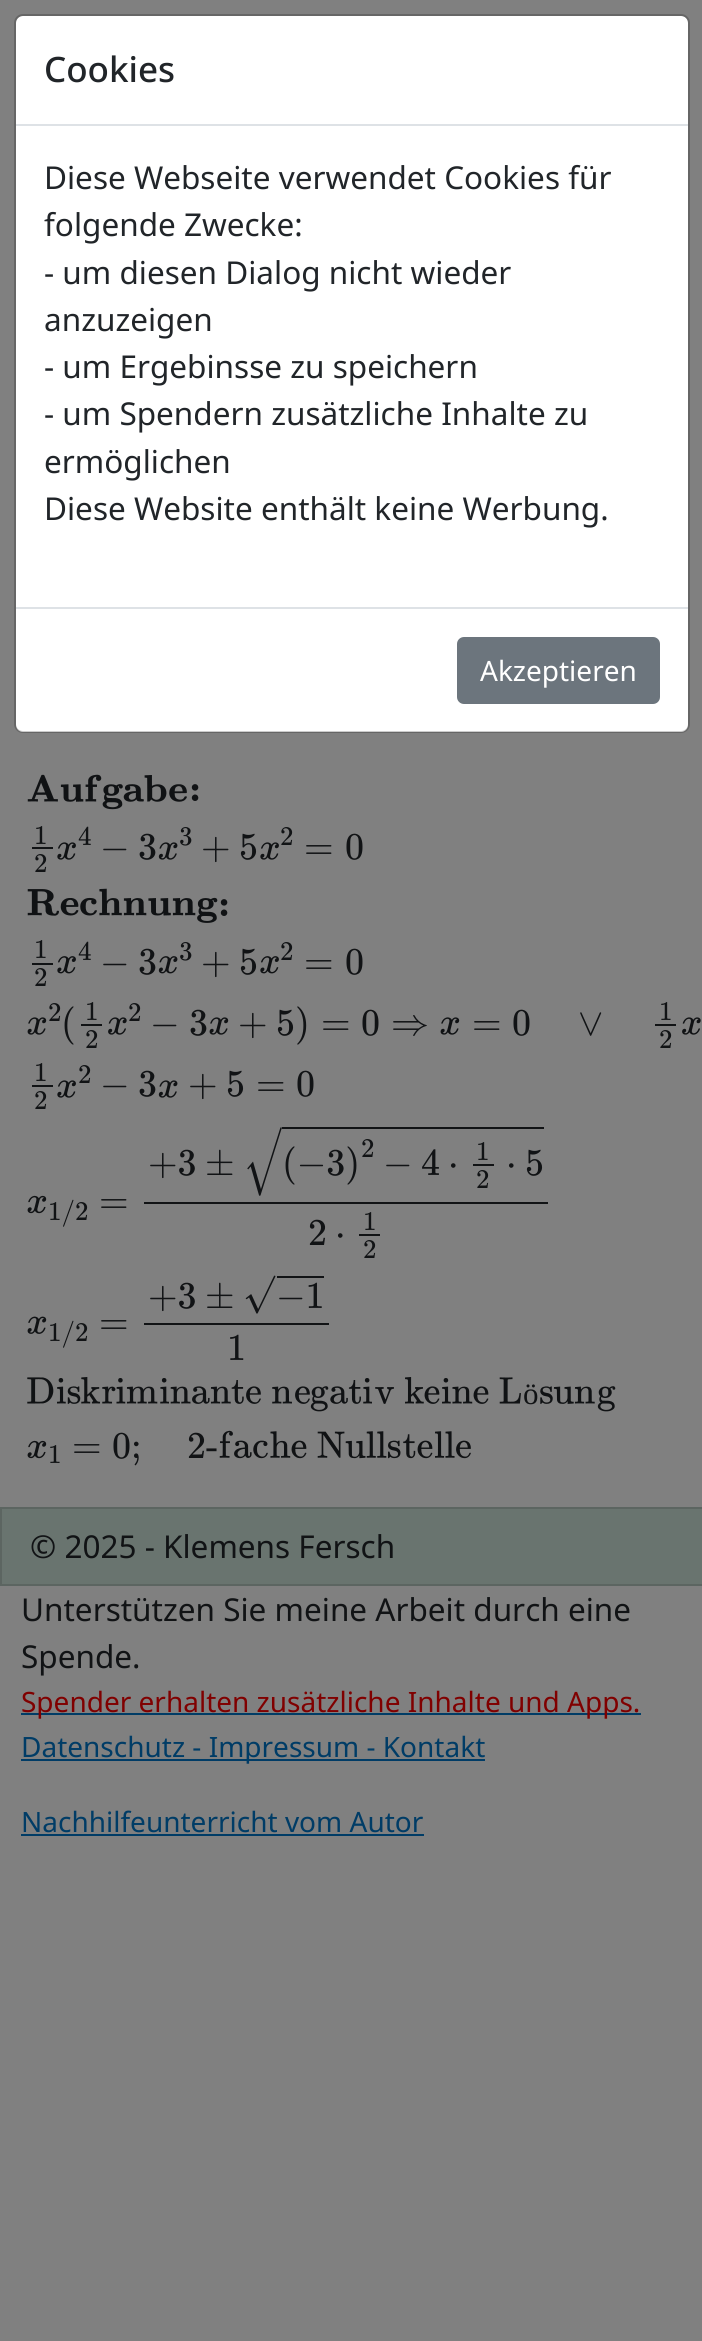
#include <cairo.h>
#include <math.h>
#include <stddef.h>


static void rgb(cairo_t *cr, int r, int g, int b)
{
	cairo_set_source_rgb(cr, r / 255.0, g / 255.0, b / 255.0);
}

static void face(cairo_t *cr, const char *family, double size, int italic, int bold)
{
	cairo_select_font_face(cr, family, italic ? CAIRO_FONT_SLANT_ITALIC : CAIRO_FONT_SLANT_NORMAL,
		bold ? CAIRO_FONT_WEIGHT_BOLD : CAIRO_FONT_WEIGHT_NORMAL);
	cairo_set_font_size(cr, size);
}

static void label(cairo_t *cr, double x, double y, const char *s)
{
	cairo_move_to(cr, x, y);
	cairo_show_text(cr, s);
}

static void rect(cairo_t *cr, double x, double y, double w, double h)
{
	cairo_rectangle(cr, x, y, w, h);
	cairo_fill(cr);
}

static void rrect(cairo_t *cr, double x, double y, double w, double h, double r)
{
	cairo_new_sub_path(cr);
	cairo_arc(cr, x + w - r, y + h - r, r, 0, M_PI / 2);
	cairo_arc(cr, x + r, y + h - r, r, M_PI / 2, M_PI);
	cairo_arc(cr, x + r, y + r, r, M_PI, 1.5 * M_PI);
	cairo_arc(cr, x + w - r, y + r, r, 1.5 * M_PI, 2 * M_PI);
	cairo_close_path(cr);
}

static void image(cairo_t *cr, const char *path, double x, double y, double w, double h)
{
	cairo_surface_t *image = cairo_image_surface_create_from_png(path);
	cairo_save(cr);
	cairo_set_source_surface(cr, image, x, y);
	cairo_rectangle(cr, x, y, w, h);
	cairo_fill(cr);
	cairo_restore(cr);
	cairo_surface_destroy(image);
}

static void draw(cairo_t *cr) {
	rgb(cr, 128, 128, 128);
	cairo_paint(cr);
	rgb(cr, 255, 255, 255);
	rrect(cr, 16, 16, 672, 716, 7);
	cairo_fill(cr);
	rrect(cr, 15, 15, 674, 717, 8);
	cairo_set_source_rgba(cr, 0, 0, 0, 0.2);
	cairo_stroke(cr);
	rgb(cr, 222, 226, 230);
	rect(cr, 16, 124, 672, 2);
	face(cr, "Noto Sans Medium", 35, 0, 0);
	rgb(cr, 33, 37, 41);
	label(cr, 44, 82, "Cookies");
	face(cr, "Noto Sans", 31.5, 0, 0);
	label(cr, 44, 189, "Diese Webseite verwendet Cookies für");
	label(cr, 44, 236, "folgende Zwecke:");
	label(cr, 44, 284, "- um diesen Dialog nicht wieder");
	label(cr, 44, 331, "anzuzeigen");
	label(cr, 44, 378, "- um Ergebinsse zu speichern");
	label(cr, 44, 425, "- um Spendern zusätzliche Inhalte zu");
	label(cr, 44, 473, "ermöglichen");
	label(cr, 44, 520, "Diese Website enthält keine Werbung.");
	rgb(cr, 222, 226, 230);
	rect(cr, 16, 607, 672, 2);
	rgb(cr, 108, 117, 125);
	rrect(cr, 458, 638, 201, 65, 6);
	cairo_fill_preserve(cr);
	cairo_stroke(cr);
	face(cr, "Noto Sans", 28, 0, 0);
	rgb(cr, 255, 255, 255);
	label(cr, 480, 681, "Akzeptieren");
	image(cr, "image0.png", 27, 774, 31, 28);
	image(cr, "image1.png", 60, 784, 24, 18);
	image(cr, "image2.png", 85, 774, 17, 28);
	image(cr, "image3.png", 102, 784, 21, 26);
	image(cr, "image4.png", 123, 784, 21, 18);
	image(cr, "image5.png", 144, 775, 23, 27);
	image(cr, "image6.png", 169, 784, 18, 18);
	face(cr, "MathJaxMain", 38, 0, 1);
	rgb(cr, 17, 19, 21);
	label(cr, 189, 801, ":");
	face(cr, "MathJaxMain", 27, 0, 0);
	label(cr, 34, 844, "1");
	rect(cr, 32, 847, 21, 2);
	label(cr, 34, 872, "2");
	label(cr, 78, 845, "4");
	image(cr, "image7.png", 57, 842, 19, 18);
	face(cr, "MathJaxMain", 38, 0, 0);
	label(cr, 100, 859, "−");
	label(cr, 138, 859, "3");
	face(cr, "MathJaxMain", 27, 0, 0);
	label(cr, 179, 845, "3");
	image(cr, "image8.png", 158, 842, 20, 18);
	face(cr, "MathJaxMain", 38, 0, 0);
	label(cr, 201, 859, "+");
	label(cr, 239, 859, "5");
	face(cr, "MathJaxMain", 27, 0, 0);
	label(cr, 280, 845, "2");
	image(cr, "image7.png", 260, 842, 19, 18);
	face(cr, "MathJaxMain", 38, 0, 0);
	label(cr, 304, 859, "=");
	label(cr, 345, 859, "0");
	image(cr, "image9.png", 27, 889, 32, 27);
	image(cr, "image10.png", 60, 898, 19, 18);
	image(cr, "image11.png", 80, 897, 17, 19);
	image(cr, "image12.png", 99, 888, 23, 28);
	image(cr, "image13.png", 123, 898, 24, 18);
	image(cr, "image14.png", 148, 898, 23, 18);
	image(cr, "image13.png", 172, 898, 24, 18);
	image(cr, "image15.png", 197, 897, 21, 26);
	face(cr, "MathJaxMain", 38, 0, 1);
	label(cr, 218, 916, ":");
	face(cr, "MathJaxMain", 27, 0, 0);
	label(cr, 34, 958, "1");
	rect(cr, 32, 963, 21, 2);
	label(cr, 34, 986, "2");
	label(cr, 78, 960, "4");
	image(cr, "image16.png", 57, 956, 19, 18);
	face(cr, "MathJaxMain", 38, 0, 0);
	label(cr, 100, 974, "−");
	label(cr, 138, 974, "3");
	face(cr, "MathJaxMain", 27, 0, 0);
	label(cr, 179, 960, "3");
	image(cr, "image17.png", 158, 956, 20, 18);
	face(cr, "MathJaxMain", 38, 0, 0);
	label(cr, 201, 974, "+");
	label(cr, 239, 974, "5");
	face(cr, "MathJaxMain", 27, 0, 0);
	label(cr, 280, 960, "2");
	image(cr, "image16.png", 260, 956, 19, 18);
	face(cr, "MathJaxMain", 38, 0, 0);
	label(cr, 304, 974, "=");
	label(cr, 345, 974, "0");
	face(cr, "MathJaxMain", 27, 0, 0);
	label(cr, 48, 1021, "2");
	image(cr, "image18.png", 27, 1017, 20, 18);
	face(cr, "MathJaxMain", 38, 0, 0);
	label(cr, 61, 1035, "(");
	face(cr, "MathJaxMain", 27, 0, 0);
	label(cr, 85, 1020, "1");
	rect(cr, 81, 1024, 21, 2);
	label(cr, 85, 1048, "2");
	label(cr, 128, 1021, "2");
	image(cr, "image19.png", 108, 1017, 19, 18);
	face(cr, "MathJaxMain", 38, 0, 0);
	label(cr, 150, 1035, "−");
	label(cr, 189, 1035, "3");
	image(cr, "image18.png", 209, 1017, 20, 18);
	label(cr, 238, 1035, "+");
	label(cr, 276, 1035, "5)");
	label(cr, 321, 1035, "=");
	label(cr, 361, 1035, "0");
	label(cr, 391, 1035, "⇒");
	image(cr, "image18.png", 440, 1017, 20, 18);
	label(cr, 472, 1035, "=");
	label(cr, 512, 1035, "0");
	label(cr, 578, 1035, "∨");
	face(cr, "MathJaxMain", 27, 0, 0);
	label(cr, 659, 1020, "1");
	rect(cr, 655, 1024, 21, 2);
	label(cr, 659, 1048, "2");
	image(cr, "image19.png", 682, 1017, 19, 18);
	label(cr, 34, 1081, "1");
	rect(cr, 32, 1085, 21, 2);
	label(cr, 34, 1109, "2");
	label(cr, 78, 1083, "2");
	image(cr, "image7.png", 57, 1080, 19, 18);
	face(cr, "MathJaxMain", 38, 0, 0);
	label(cr, 100, 1096, "−");
	label(cr, 138, 1096, "3");
	image(cr, "image8.png", 158, 1080, 20, 18);
	label(cr, 188, 1096, "+");
	label(cr, 226, 1096, "5");
	label(cr, 256, 1096, "=");
	label(cr, 296, 1096, "0");
	image(cr, "image20.png", 27, 1195, 20, 19);
	face(cr, "MathJaxMain", 27, 0, 0);
	label(cr, 48, 1220, "1/2");
	face(cr, "MathJaxMain", 38, 0, 0);
	label(cr, 99, 1213, "=");
	label(cr, 148, 1175, "+3");
	label(cr, 205, 1175, "±");
	face(cr, "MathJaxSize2", 38, 0, 0);
	label(cr, 243, 1171, "√");
	rect(cr, 282, 1127, 262, 2);
	face(cr, "MathJaxMain", 38, 0, 0);
	label(cr, 282, 1175, "(−3)");
	face(cr, "MathJaxMain", 27, 0, 0);
	label(cr, 361, 1157, "2");
	face(cr, "MathJaxMain", 38, 0, 0);
	label(cr, 383, 1175, "−");
	label(cr, 421, 1175, "4");
	label(cr, 448, 1175, "⋅");
	face(cr, "MathJaxMain", 27, 0, 0);
	label(cr, 476, 1160, "1");
	rect(cr, 473, 1164, 21, 2);
	label(cr, 476, 1188, "2");
	face(cr, "MathJaxMain", 38, 0, 0);
	label(cr, 506, 1175, "⋅");
	label(cr, 525, 1175, "5");
	rect(cr, 144, 1202, 404, 2);
	label(cr, 308, 1245, "2");
	label(cr, 335, 1245, "⋅");
	face(cr, "MathJaxMain", 27, 0, 0);
	label(cr, 363, 1230, "1");
	rect(cr, 359, 1234, 21, 2);
	label(cr, 363, 1258, "2");
	image(cr, "image21.png", 27, 1316, 20, 18);
	label(cr, 48, 1341, "1/2");
	face(cr, "MathJaxMain", 38, 0, 0);
	label(cr, 99, 1334, "=");
	label(cr, 148, 1308, "+3");
	label(cr, 205, 1308, "±");
	label(cr, 243, 1306, "√");
	rect(cr, 277, 1276, 47, 2);
	label(cr, 276, 1308, "−1");
	rect(cr, 144, 1323, 185, 2);
	label(cr, 227, 1360, "1");
	image(cr, "image22.png", 27, 1377, 27, 27);
	image(cr, "image23.png", 57, 1378, 9, 26);
	image(cr, "image24.png", 67, 1386, 14, 18);
	image(cr, "image25.png", 81, 1377, 20, 27);
	image(cr, "image26.png", 102, 1386, 14, 18);
	image(cr, "image27.png", 116, 1378, 10, 26);
	image(cr, "image28.png", 126, 1386, 32, 18);
	image(cr, "image29.png", 160, 1378, 9, 26);
	image(cr, "image30.png", 170, 1386, 21, 18);
	image(cr, "image31.png", 192, 1386, 18, 18);
	image(cr, "image32.png", 210, 1386, 21, 18);
	image(cr, "image33.png", 231, 1380, 13, 24);
	image(cr, "image34.png", 246, 1386, 15, 18);
	image(cr, "image35.png", 272, 1386, 20, 18);
	image(cr, "image34.png", 295, 1386, 15, 18);
	image(cr, "image36.png", 310, 1386, 19, 26);
	image(cr, "image37.png", 330, 1386, 18, 18);
	image(cr, "image38.png", 348, 1380, 13, 24);
	image(cr, "image29.png", 363, 1378, 9, 26);
	image(cr, "image39.png", 375, 1387, 19, 17);
	image(cr, "image40.png", 405, 1377, 19, 27);
	image(cr, "image41.png", 424, 1386, 16, 18);
	image(cr, "image23.png", 442, 1378, 9, 26);
	image(cr, "image42.png", 452, 1386, 21, 18);
	image(cr, "image41.png", 473, 1386, 16, 18);
	image(cr, "image43.png", 499, 1377, 22, 27);
	face(cr, "Liberation Serif", 31, 0, 0);
	label(cr, 523, 1404, "ö");
	image(cr, "image44.png", 540, 1386, 13, 18);
	image(cr, "image45.png", 553, 1386, 21, 18);
	image(cr, "image32.png", 574, 1386, 21, 18);
	image(cr, "image36.png", 597, 1386, 19, 26);
	image(cr, "image20.png", 27, 1440, 20, 19);
	face(cr, "MathJaxMain", 27, 0, 0);
	label(cr, 48, 1463, "1");
	face(cr, "MathJaxMain", 38, 0, 0);
	label(cr, 72, 1458, "=");
	label(cr, 112, 1458, "0;");
	label(cr, 187, 1458, "2-");
	image(cr, "image46.png", 219, 1430, 14, 28);
	image(cr, "image47.png", 234, 1440, 18, 19);
	image(cr, "image48.png", 253, 1440, 15, 19);
	image(cr, "image49.png", 270, 1431, 21, 27);
	image(cr, "image50.png", 291, 1440, 16, 19);
	image(cr, "image51.png", 317, 1431, 28, 27);
	image(cr, "image52.png", 345, 1440, 21, 19);
	image(cr, "image53.png", 366, 1431, 10, 27);
	image(cr, "image54.png", 377, 1431, 10, 27);
	image(cr, "image55.png", 388, 1440, 13, 19);
	image(cr, "image56.png", 403, 1434, 13, 25);
	image(cr, "image50.png", 417, 1440, 16, 19);
	image(cr, "image57.png", 435, 1431, 10, 27);
	image(cr, "image58.png", 445, 1431, 10, 27);
	image(cr, "image59.png", 456, 1440, 15, 19);
	rgb(cr, 105, 116, 111);
	cairo_rectangle(cr, 1, 1508, 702, 77);
	cairo_fill_preserve(cr);
	rgb(cr, 92, 101, 97);
	cairo_stroke(cr);
	face(cr, "Noto Sans", 31.5, 0, 0);
	rgb(cr, 17, 19, 21);
	label(cr, 30, 1558, "© 2025 - Klemens Fersch");
	label(cr, 21, 1621, "Unterstützen Sie meine Arbeit durch eine");
	label(cr, 21, 1668, "Spende.");
	rgb(cr, 0, 60, 102);
	rect(cr, 21, 1713, 620, 2);
	face(cr, "Noto Sans", 28, 0, 0);
	rgb(cr, 128, 0, 0);
	label(cr, 21, 1712, "Spender erhalten zusätzliche Inhalte und Apps.");
	rgb(cr, 0, 60, 102);
	rect(cr, 21, 1759, 464, 2);
	label(cr, 21, 1757, "Datenschutz - Impressum - Kontakt");
	label(cr, 21, 1832, "Nachhilfeunterricht vom Autor");
	rect(cr, 21, 1834, 403, 2);
}

int main(void) {
	cairo_surface_t *surface = cairo_image_surface_create(CAIRO_FORMAT_RGB24, 702, 2341);
	cairo_t *cr = cairo_create(surface);
	cairo_font_options_t *options = cairo_font_options_create();
	cairo_font_options_set_hint_metrics(options, CAIRO_HINT_METRICS_OFF);
	cairo_font_options_set_hint_style(options, CAIRO_HINT_STYLE_NONE);
	cairo_set_font_options(cr, options);
	cairo_set_miter_limit(cr, 4);
	draw(cr);
	cairo_surface_write_to_png(surface, "render.png");
	cairo_font_options_destroy(options);
	cairo_destroy(cr);
	cairo_surface_destroy(surface);
	return 0;
}
